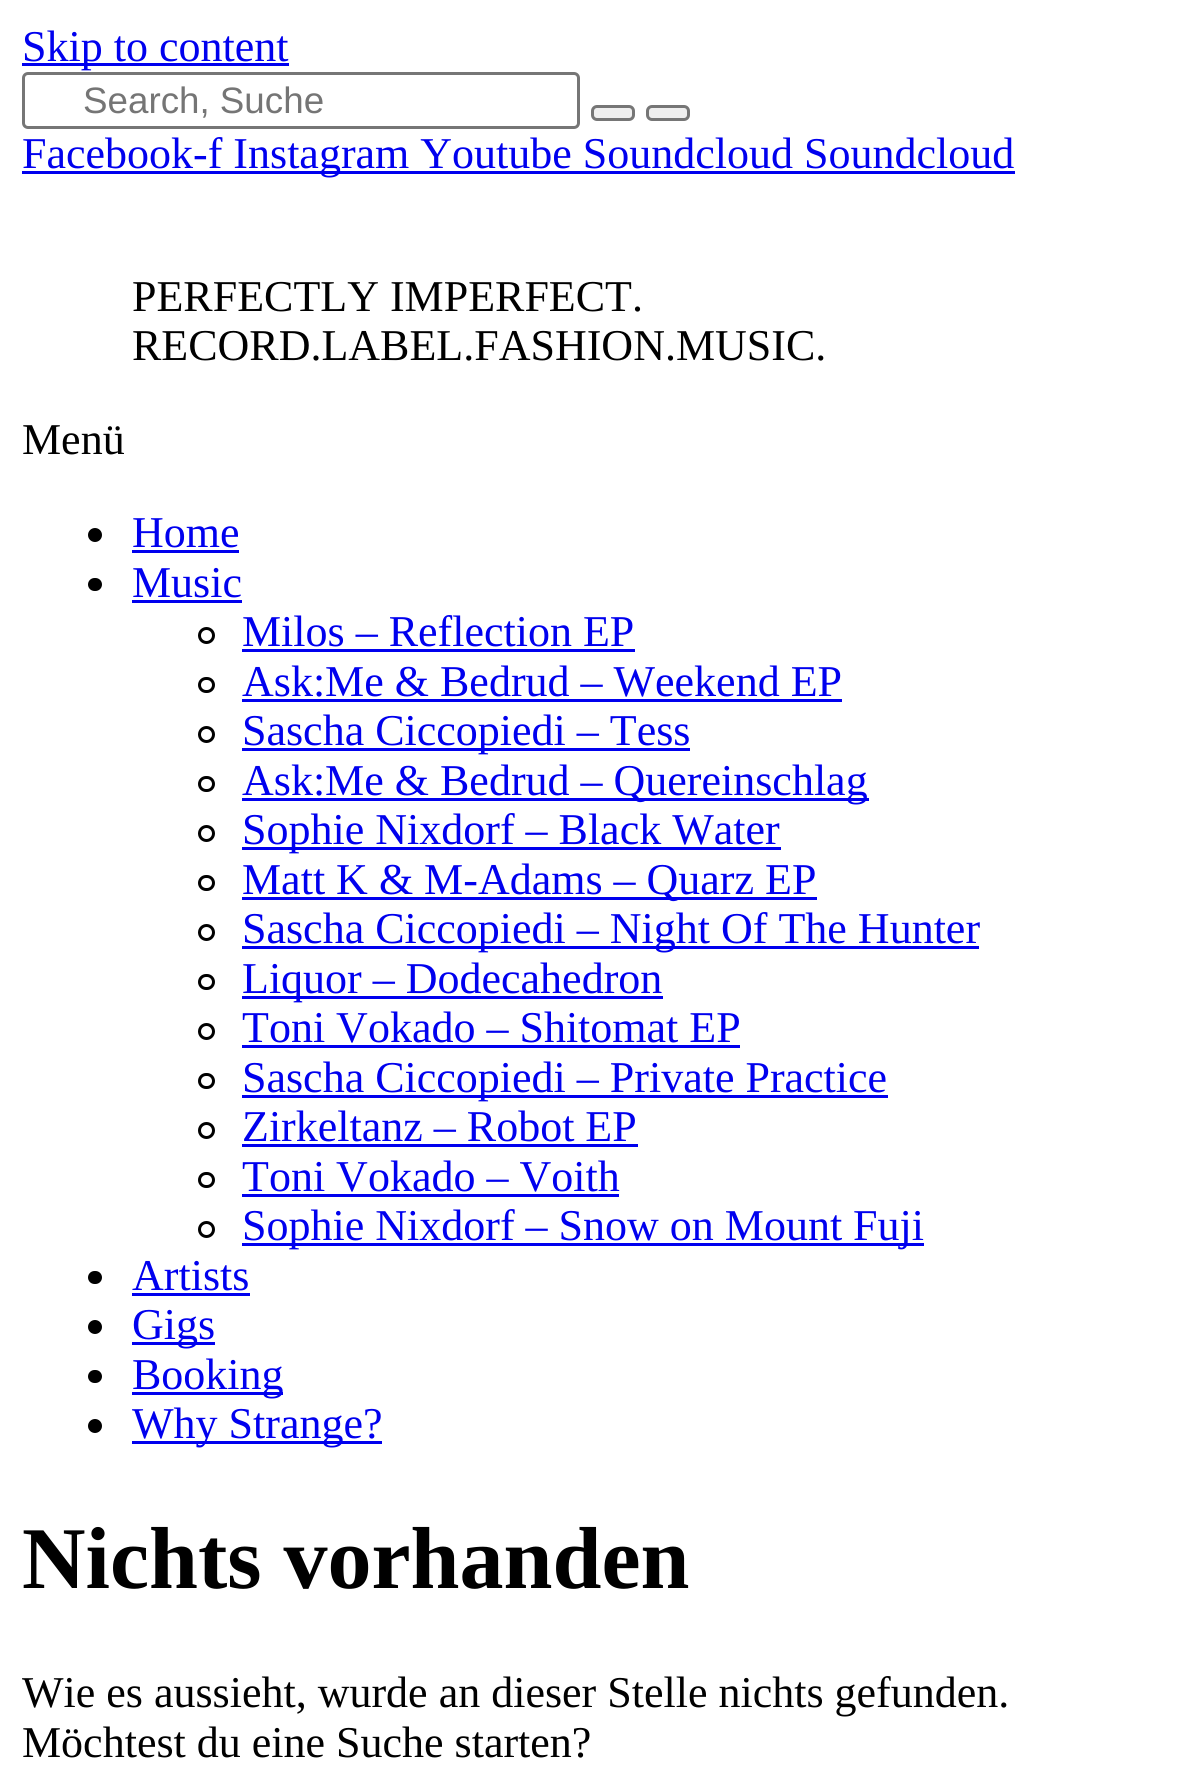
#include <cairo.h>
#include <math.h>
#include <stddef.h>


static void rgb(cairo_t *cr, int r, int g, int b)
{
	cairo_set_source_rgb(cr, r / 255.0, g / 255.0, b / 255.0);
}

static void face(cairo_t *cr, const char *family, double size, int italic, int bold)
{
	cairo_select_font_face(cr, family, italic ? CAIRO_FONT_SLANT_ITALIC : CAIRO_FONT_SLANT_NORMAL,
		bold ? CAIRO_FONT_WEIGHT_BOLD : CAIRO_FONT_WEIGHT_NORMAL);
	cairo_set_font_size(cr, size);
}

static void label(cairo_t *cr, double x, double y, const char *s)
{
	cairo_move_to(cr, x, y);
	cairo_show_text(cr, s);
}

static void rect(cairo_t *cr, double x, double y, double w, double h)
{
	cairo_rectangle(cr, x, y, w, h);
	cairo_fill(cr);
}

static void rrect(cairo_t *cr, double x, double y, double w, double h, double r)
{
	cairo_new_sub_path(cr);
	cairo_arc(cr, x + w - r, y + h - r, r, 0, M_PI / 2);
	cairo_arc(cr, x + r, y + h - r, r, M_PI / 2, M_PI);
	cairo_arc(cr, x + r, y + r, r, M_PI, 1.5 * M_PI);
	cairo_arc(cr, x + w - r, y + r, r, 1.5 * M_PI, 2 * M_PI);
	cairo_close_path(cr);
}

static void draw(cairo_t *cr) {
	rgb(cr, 255, 255, 255);
	cairo_paint(cr);
	rgb(cr, 0, 0, 238);
	rect(cr, 22, 63, 267, 3);
	face(cr, "Liberation Serif", 44, 0, 0);
	label(cr, 22, 61, "Skip to content");
	rrect(cr, 23.5, 73.5, 555, 54, 4.5);
	rgb(cr, 118, 118, 118);
	cairo_set_line_width(cr, 3);
	cairo_stroke(cr);
	face(cr, "Liberation Sans", 36.75, 0, 0);
	rgb(cr, 117, 117, 117);
	label(cr, 83, 113, "Search, Suche");
	rgb(cr, 239, 239, 239);
	rrect(cr, 592.5, 106.5, 41, 13, 4.5);
	cairo_fill_preserve(cr);
	rgb(cr, 118, 118, 118);
	cairo_stroke(cr);
	rgb(cr, 239, 239, 239);
	rrect(cr, 647.5, 106.5, 41, 13, 4.5);
	cairo_fill_preserve(cr);
	rgb(cr, 118, 118, 118);
	cairo_stroke(cr);
	rgb(cr, 0, 0, 238);
	rect(cr, 22, 171, 770, 3);
	face(cr, "Liberation Serif", 44, 0, 0);
	label(cr, 22, 168, "Facebook-f Instagram Youtube Soundcloud Soundcloud");
	rect(cr, 792, 171, 223, 3);
	rgb(cr, 0, 0, 0);
	label(cr, 132, 311, "PERFECTLY IMPERFECT.");
	label(cr, 132, 360, "RECORD.LABEL.FASHION.MUSIC.");
	label(cr, 22, 454, "Menü");
	cairo_new_path(cr);
	cairo_arc(cr, 95, 535, 7, 0, 2 * M_PI);
	cairo_fill(cr);
	rgb(cr, 0, 0, 238);
	label(cr, 132, 547, "Home");
	rect(cr, 132, 550, 107, 3);
	rgb(cr, 0, 0, 0);
	rrect(cr, 88, 578, 14, 13, 6.5);
	cairo_fill(cr);
	rgb(cr, 0, 0, 238);
	label(cr, 132, 597, "Music");
	rect(cr, 132, 600, 110, 3);
	cairo_new_path(cr);
	cairo_arc(cr, 206.5, 635.5, 7, 0, 2 * M_PI);
	rgb(cr, 0, 0, 0);
	cairo_stroke(cr);
	rgb(cr, 0, 0, 238);
	label(cr, 242, 646, "Milos – Reflection EP");
	rect(cr, 242, 649, 393, 3);
	rrect(cr, 199.5, 678.5, 14, 13, 6.5);
	rgb(cr, 0, 0, 0);
	cairo_stroke(cr);
	rgb(cr, 0, 0, 238);
	label(cr, 242, 696, "Ask:Me & Bedrud – Weekend EP");
	rect(cr, 242, 699, 600, 3);
	cairo_new_path(cr);
	cairo_arc(cr, 206.5, 734.5, 7, 0, 2 * M_PI);
	rgb(cr, 0, 0, 0);
	cairo_stroke(cr);
	rgb(cr, 0, 0, 238);
	rect(cr, 242, 748, 448, 3);
	label(cr, 242, 745, "Sascha Ciccopiedi – Tess");
	rrect(cr, 199.5, 777.5, 14, 13, 6.5);
	rgb(cr, 0, 0, 0);
	cairo_stroke(cr);
	rgb(cr, 0, 0, 238);
	rect(cr, 242, 798, 627, 3);
	label(cr, 242, 795, "Ask:Me & Bedrud – Quereinschlag");
	cairo_new_path(cr);
	cairo_arc(cr, 206.5, 833.5, 7, 0, 2 * M_PI);
	rgb(cr, 0, 0, 0);
	cairo_stroke(cr);
	rgb(cr, 0, 0, 238);
	rect(cr, 242, 847, 539, 3);
	label(cr, 242, 844, "Sophie Nixdorf – Black Water");
	rrect(cr, 199.5, 876.5, 14, 13, 6.5);
	rgb(cr, 0, 0, 0);
	cairo_stroke(cr);
	rgb(cr, 0, 0, 238);
	rect(cr, 242, 897, 575, 3);
	label(cr, 242, 894, "Matt K & M-Adams – Quarz EP");
	cairo_new_path(cr);
	cairo_arc(cr, 206.5, 932.5, 7, 0, 2 * M_PI);
	rgb(cr, 0, 0, 0);
	cairo_stroke(cr);
	rgb(cr, 0, 0, 238);
	rect(cr, 242, 946, 737, 3);
	label(cr, 242, 943, "Sascha Ciccopiedi – Night Of The Hunter");
	rrect(cr, 199.5, 975.5, 14, 13, 6.5);
	rgb(cr, 0, 0, 0);
	cairo_stroke(cr);
	rgb(cr, 0, 0, 238);
	rect(cr, 242, 996, 421, 3);
	label(cr, 242, 993, "Liquor – Dodecahedron");
	cairo_new_path(cr);
	cairo_arc(cr, 206.5, 1031.5, 7, 0, 2 * M_PI);
	rgb(cr, 0, 0, 0);
	cairo_stroke(cr);
	rgb(cr, 0, 0, 238);
	label(cr, 242, 1042, "Toni Vokado – Shitomat EP");
	rect(cr, 242, 1045, 498, 3);
	rrect(cr, 199.5, 1074.5, 14, 13, 6.5);
	rgb(cr, 0, 0, 0);
	cairo_stroke(cr);
	rgb(cr, 0, 0, 238);
	rect(cr, 242, 1095, 646, 3);
	label(cr, 242, 1092, "Sascha Ciccopiedi – Private Practice");
	cairo_new_path(cr);
	cairo_arc(cr, 206.5, 1130.5, 7, 0, 2 * M_PI);
	rgb(cr, 0, 0, 0);
	cairo_stroke(cr);
	rgb(cr, 0, 0, 238);
	label(cr, 242, 1141, "Zirkeltanz – Robot EP");
	rect(cr, 242, 1144, 396, 3);
	rrect(cr, 199.5, 1173.5, 14, 13, 6.5);
	rgb(cr, 0, 0, 0);
	cairo_stroke(cr);
	rgb(cr, 0, 0, 238);
	label(cr, 242, 1191, "Toni Vokado – Voith");
	rect(cr, 242, 1194, 377, 3);
	cairo_new_path(cr);
	cairo_arc(cr, 206.5, 1229.5, 7, 0, 2 * M_PI);
	rgb(cr, 0, 0, 0);
	cairo_stroke(cr);
	rgb(cr, 0, 0, 238);
	rect(cr, 242, 1243, 682, 3);
	label(cr, 242, 1240, "Sophie Nixdorf – Snow on Mount Fuji");
	rgb(cr, 0, 0, 0);
	rrect(cr, 88, 1271, 14, 13, 6.5);
	cairo_fill(cr);
	rgb(cr, 0, 0, 238);
	label(cr, 132, 1290, "Artists");
	rect(cr, 132, 1293, 118, 3);
	rgb(cr, 0, 0, 0);
	cairo_new_path(cr);
	cairo_arc(cr, 95, 1327, 7, 0, 2 * M_PI);
	cairo_fill(cr);
	rgb(cr, 0, 0, 238);
	rect(cr, 132, 1342, 83, 3);
	label(cr, 132, 1339, "Gigs");
	rgb(cr, 0, 0, 0);
	rrect(cr, 88, 1370, 14, 13, 6.5);
	cairo_fill(cr);
	rgb(cr, 0, 0, 238);
	rect(cr, 132, 1392, 151, 3);
	label(cr, 132, 1389, "Booking");
	rgb(cr, 0, 0, 0);
	cairo_new_path(cr);
	cairo_arc(cr, 95, 1426, 7, 0, 2 * M_PI);
	cairo_fill(cr);
	rgb(cr, 0, 0, 238);
	rect(cr, 132, 1441, 250, 3);
	label(cr, 132, 1438, "Why Strange?");
	face(cr, "Liberation Serif", 88, 0, 1);
	rgb(cr, 0, 0, 0);
	label(cr, 22, 1588, "Nichts vorhanden");
	face(cr, "Liberation Serif", 44, 0, 0);
	label(cr, 22, 1707, "Wie es aussieht, wurde an dieser Stelle nichts gefunden.");
	label(cr, 22, 1757, "Möchtest du eine Suche starten?");
}

int main(void) {
	cairo_surface_t *surface = cairo_image_surface_create(CAIRO_FORMAT_RGB24, 1192, 1769);
	cairo_t *cr = cairo_create(surface);
	cairo_font_options_t *options = cairo_font_options_create();
	cairo_font_options_set_hint_metrics(options, CAIRO_HINT_METRICS_OFF);
	cairo_font_options_set_hint_style(options, CAIRO_HINT_STYLE_NONE);
	cairo_set_font_options(cr, options);
	cairo_set_miter_limit(cr, 4);
	draw(cr);
	cairo_surface_write_to_png(surface, "render.png");
	cairo_font_options_destroy(options);
	cairo_destroy(cr);
	cairo_surface_destroy(surface);
	return 0;
}
